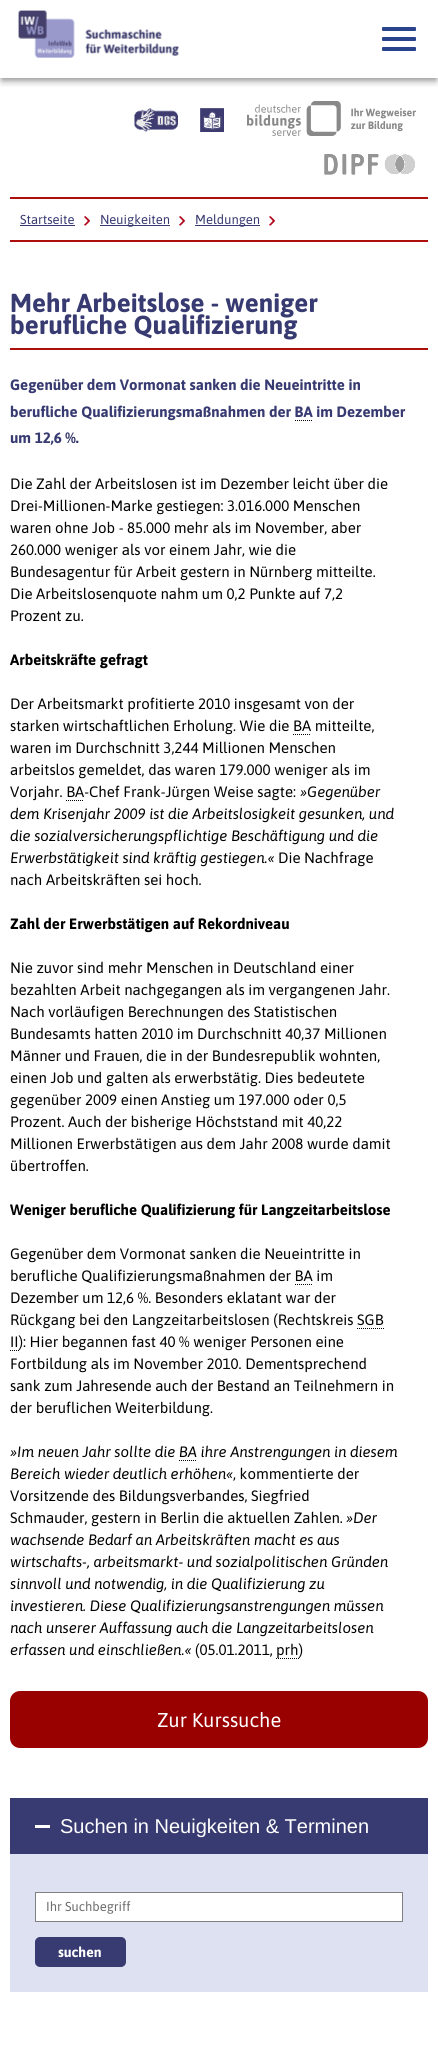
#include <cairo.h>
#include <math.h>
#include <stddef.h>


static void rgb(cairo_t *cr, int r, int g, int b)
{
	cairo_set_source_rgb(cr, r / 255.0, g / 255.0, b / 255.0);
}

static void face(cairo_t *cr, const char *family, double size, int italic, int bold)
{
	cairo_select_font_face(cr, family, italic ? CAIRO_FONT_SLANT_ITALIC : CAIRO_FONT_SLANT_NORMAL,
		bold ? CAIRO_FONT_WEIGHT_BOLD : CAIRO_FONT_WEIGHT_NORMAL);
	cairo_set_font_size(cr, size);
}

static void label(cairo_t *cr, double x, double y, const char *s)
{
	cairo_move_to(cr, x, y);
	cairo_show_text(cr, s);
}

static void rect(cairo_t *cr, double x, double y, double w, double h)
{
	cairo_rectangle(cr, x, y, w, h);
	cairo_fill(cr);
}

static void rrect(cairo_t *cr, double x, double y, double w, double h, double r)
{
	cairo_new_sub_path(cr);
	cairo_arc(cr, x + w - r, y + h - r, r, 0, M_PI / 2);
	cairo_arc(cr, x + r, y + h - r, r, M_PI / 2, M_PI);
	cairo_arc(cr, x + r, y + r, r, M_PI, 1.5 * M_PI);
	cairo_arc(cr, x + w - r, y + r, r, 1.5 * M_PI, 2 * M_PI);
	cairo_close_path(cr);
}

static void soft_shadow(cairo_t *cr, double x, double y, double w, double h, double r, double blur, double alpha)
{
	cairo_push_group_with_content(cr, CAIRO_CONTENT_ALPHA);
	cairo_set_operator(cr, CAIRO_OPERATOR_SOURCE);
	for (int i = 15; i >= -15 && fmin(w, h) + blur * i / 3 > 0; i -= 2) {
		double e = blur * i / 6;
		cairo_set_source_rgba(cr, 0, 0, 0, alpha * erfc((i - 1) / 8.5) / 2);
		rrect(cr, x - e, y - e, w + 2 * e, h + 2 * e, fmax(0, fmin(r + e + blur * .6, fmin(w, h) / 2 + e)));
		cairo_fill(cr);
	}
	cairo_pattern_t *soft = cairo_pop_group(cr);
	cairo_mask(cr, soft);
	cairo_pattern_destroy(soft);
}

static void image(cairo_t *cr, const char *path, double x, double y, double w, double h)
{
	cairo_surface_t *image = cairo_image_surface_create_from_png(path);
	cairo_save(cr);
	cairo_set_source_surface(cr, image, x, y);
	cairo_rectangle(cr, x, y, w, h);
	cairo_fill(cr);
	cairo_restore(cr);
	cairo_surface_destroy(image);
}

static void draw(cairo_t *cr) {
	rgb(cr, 255, 255, 255);
	cairo_paint(cr);
	cairo_save(cr);
	cairo_rectangle(cr, 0, 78, 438, 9);
	cairo_clip(cr);
	rgb(cr, 0, 0, 0);
	soft_shadow(cr, 2, 6, 434, 74, 0, 4, 0.5);
	cairo_restore(cr);
	image(cr, "image0.png", 18, 10, 161, 48);
	image(cr, "image1.png", 382, 27, 34, 24);
	image(cr, "image2.png", 134, 108, 44, 24);
	image(cr, "image3.png", 200, 108, 24, 24);
	image(cr, "image4.png", 247, 101, 169, 35);
	image(cr, "image5.png", 324, 154, 91, 21);
	rgb(cr, 174, 15, 10);
	rect(cr, 10, 197, 418, 2);
	rect(cr, 10, 240, 418, 2);
	face(cr, "Asap", 13, 0, 0);
	rgb(cr, 56, 59, 113);
	label(cr, 20, 224, "Startseite");
	rect(cr, 20, 225, 55, 1);
	image(cr, "image6.png", 84, 216, 6, 10);
	rect(cr, 100, 225, 70, 1);
	label(cr, 100, 224, "Neuigkeiten");
	image(cr, "image6.png", 179, 216, 6, 10);
	rect(cr, 195, 225, 65, 1);
	label(cr, 195, 224, "Meldungen");
	image(cr, "image6.png", 269, 216, 6, 10);
	rgb(cr, 174, 15, 10);
	rect(cr, 10, 348, 418, 2);
	face(cr, "Asap", 26, 0, 1);
	rgb(cr, 56, 59, 113);
	label(cr, 10, 312, "Mehr Arbeitslose - weniger");
	label(cr, 10, 334, "berufliche Qualifizierung");
	face(cr, "Asap", 15, 0, 1);
	label(cr, 10, 390, "Gegenüber dem Vormonat sanken die Neueintritte in");
	label(cr, 10, 417, "berufliche Qualifizierungsmaßnahmen der BA im Dezember");
	cairo_new_path(cr);
	cairo_move_to(cr, 295, 420.5);
	cairo_line_to(cr, 313, 420.5);
	rgb(cr, 0, 0, 0);
	cairo_set_line_width(cr, 1);
	cairo_set_dash(cr, (double[]){1, 1}, 2, 0);
	cairo_stroke(cr);
	rgb(cr, 56, 59, 113);
	label(cr, 10, 443, "um 12,6 %.");
	face(cr, "Asap", 15, 0, 0);
	rgb(cr, 0, 0, 0);
	label(cr, 10, 489, "Die Zahl der Arbeitslosen ist im Dezember leicht über die");
	label(cr, 10, 511, "Drei-Millionen-Marke gestiegen: 3.016.000 Menschen");
	label(cr, 10, 533, "waren ohne Job - 85.000 mehr als im November, aber");
	label(cr, 10, 555, "260.000 weniger als vor einem Jahr, wie die");
	label(cr, 10, 577, "Bundesagentur für Arbeit gestern in Nürnberg mitteilte.");
	label(cr, 10, 599, "Die Arbeitslosenquote nahm um 0,2 Punkte auf 7,2");
	label(cr, 10, 621, "Prozent zu.");
	face(cr, "Asap", 15, 0, 1);
	label(cr, 10, 665, "Arbeitskräfte gefragt");
	face(cr, "Asap", 15, 0, 0);
	label(cr, 10, 709, "Der Arbeitsmarkt profitierte 2010 insgesamt von der");
	label(cr, 10, 731, "starken wirtschaftlichen Erholung. Wie die BA mitteilte,");
	cairo_new_path(cr);
	cairo_move_to(cr, 293, 734.5);
	cairo_line_to(cr, 311, 734.5);
	cairo_stroke(cr);
	label(cr, 10, 753, "waren im Durchschnitt 3,244 Millionen Menschen");
	label(cr, 10, 775, "arbeitslos gemeldet, das waren 179.000 weniger als im");
	label(cr, 10, 797, "Vorjahr. BA-Chef Frank-Jürgen Weise sagte:");
	face(cr, "Asap", 15, 1, 0);
	label(cr, 300, 797, "»Gegenüber");
	cairo_new_path(cr);
	cairo_move_to(cr, 66, 800.5);
	cairo_line_to(cr, 84, 800.5);
	cairo_stroke(cr);
	label(cr, 10, 819, "dem Krisenjahr 2009 ist die Arbeitslosigkeit gesunken, und");
	label(cr, 10, 841, "die sozialversicherungspflichtige Beschäftigung und die");
	label(cr, 10, 863, "Erwerbstätigkeit sind kräftig gestiegen.«");
	face(cr, "Asap", 15, 0, 0);
	label(cr, 278, 863, "Die Nachfrage");
	label(cr, 10, 885, "nach Arbeitskräften sei hoch.");
	face(cr, "Asap", 15, 0, 1);
	label(cr, 10, 929, "Zahl der Erwerbstätigen auf Rekordniveau");
	face(cr, "Asap", 15, 0, 0);
	label(cr, 10, 973, "Nie zuvor sind mehr Menschen in Deutschland einer");
	label(cr, 10, 995, "bezahlten Arbeit nachgegangen als im vergangenen Jahr.");
	label(cr, 10, 1017, "Nach vorläufigen Berechnungen des Statistischen");
	label(cr, 10, 1039, "Bundesamts hatten 2010 im Durchschnitt 40,37 Millionen");
	label(cr, 10, 1061, "Männer und Frauen, die in der Bundesrepublik wohnten,");
	label(cr, 10, 1083, "einen Job und galten als erwerbstätig. Dies bedeutete");
	label(cr, 10, 1105, "gegenüber 2009 einen Anstieg um 197.000 oder 0,5");
	label(cr, 10, 1127, "Prozent. Auch der bisherige Höchststand mit 40,22");
	label(cr, 10, 1149, "Millionen Erwerbstätigen aus dem Jahr 2008 wurde damit");
	label(cr, 10, 1171, "übertroffen.");
	face(cr, "Asap", 15, 0, 1);
	label(cr, 10, 1215, "Weniger berufliche Qualifizierung für Langzeitarbeitslose");
	face(cr, "Asap", 15, 0, 0);
	label(cr, 10, 1259, "Gegenüber dem Vormonat sanken die Neueintritte in");
	label(cr, 10, 1281, "berufliche Qualifizierungsmaßnahmen der BA im");
	cairo_new_path(cr);
	cairo_move_to(cr, 295, 1284.5);
	cairo_line_to(cr, 313, 1284.5);
	cairo_stroke(cr);
	label(cr, 10, 1303, "Dezember um 12,6 %. Besonders eklatant war der");
	label(cr, 10, 1325, "Rückgang bei den Langzeitarbeitslosen (Rechtskreis SGB");
	cairo_new_path(cr);
	cairo_move_to(cr, 10, 1350.5);
	cairo_line_to(cr, 19, 1350.5);
	cairo_stroke(cr);
	label(cr, 10, 1347, "II): Hier begannen fast 40 % weniger Personen eine");
	cairo_new_path(cr);
	cairo_move_to(cr, 357, 1328.5);
	cairo_line_to(cr, 384, 1328.5);
	cairo_stroke(cr);
	label(cr, 10, 1369, "Fortbildung als im November 2010. Dementsprechend");
	label(cr, 10, 1391, "sank zum Jahresende auch der Bestand an Teilnehmern in");
	label(cr, 10, 1413, "der beruflichen Weiterbildung.");
	face(cr, "Asap", 15, 1, 0);
	label(cr, 10, 1457, "»Im neuen Jahr sollte die BA ihre Anstrengungen in diesem");
	cairo_new_path(cr);
	cairo_move_to(cr, 179, 1460.5);
	cairo_line_to(cr, 197, 1460.5);
	cairo_stroke(cr);
	label(cr, 10, 1479, "Bereich wieder deutlich erhöhen«");
	face(cr, "Asap", 15, 0, 0);
	label(cr, 233, 1479, ", kommentierte der");
	label(cr, 10, 1501, "Vorsitzende des Bildungsverbandes, Siegfried");
	label(cr, 10, 1523, "Schmauder, gestern in Berlin die aktuellen Zahlen.");
	face(cr, "Asap", 15, 1, 0);
	label(cr, 346, 1523, "»Der");
	label(cr, 10, 1545, "wachsende Bedarf an Arbeitskräften macht es aus");
	label(cr, 10, 1567, "wirtschafts-, arbeitsmarkt- und sozialpolitischen Gründen");
	label(cr, 10, 1589, "sinnvoll und notwendig, in die Qualifizierung zu");
	label(cr, 10, 1611, "investieren. Diese Qualifizierungsanstrengungen müssen");
	label(cr, 10, 1633, "nach unserer Auffassung auch die Langzeitarbeitslosen");
	label(cr, 10, 1655, "erfassen und einschließen.«");
	face(cr, "Asap", 15, 0, 0);
	label(cr, 195, 1655, "(05.01.2011,");
	cairo_new_path(cr);
	cairo_move_to(cr, 276, 1658.5);
	cairo_line_to(cr, 299, 1658.5);
	cairo_stroke(cr);
	label(cr, 276, 1655, "prh)");
	rgb(cr, 153, 0, 0);
	rrect(cr, 11, 1692, 416, 55, 9);
	cairo_fill_preserve(cr);
	cairo_set_line_width(cr, 2);
	cairo_set_dash(cr, NULL, 0, 0);
	cairo_stroke(cr);
	face(cr, "Asap", 20, 0, 0);
	rgb(cr, 255, 255, 255);
	label(cr, 157, 1727, "Zur Kurssuche");
	rgb(cr, 56, 59, 113);
	rect(cr, 10, 1798, 418, 56);
	rgb(cr, 255, 255, 255);
	rect(cr, 35, 1825, 15, 3);
	face(cr, "Liberation Sans", 20, 0, 0);
	label(cr, 60, 1833, "Suchen in Neuigkeiten & Terminen");
	rgb(cr, 221, 225, 241);
	rect(cr, 10, 1854, 418, 138);
	rgb(cr, 255, 255, 255);
	cairo_rectangle(cr, 35.5, 1892.5, 367, 29);
	cairo_fill_preserve(cr);
	rgb(cr, 128, 128, 128);
	cairo_set_line_width(cr, 1);
	cairo_stroke(cr);
	face(cr, "Asap", 13, 0, 0);
	rgb(cr, 109, 109, 109);
	label(cr, 46, 1911, "Ihr Suchbegriff");
	rgb(cr, 56, 59, 113);
	rrect(cr, 36, 1938, 89, 28, 4);
	cairo_fill_preserve(cr);
	cairo_set_line_width(cr, 2);
	cairo_stroke(cr);
	face(cr, "Asap", 14, 0, 1);
	rgb(cr, 255, 255, 255);
	label(cr, 58, 1957, "suchen");
}

int main(void) {
	cairo_surface_t *surface = cairo_image_surface_create(CAIRO_FORMAT_RGB24, 438, 2058);
	cairo_t *cr = cairo_create(surface);
	cairo_font_options_t *options = cairo_font_options_create();
	cairo_font_options_set_hint_metrics(options, CAIRO_HINT_METRICS_OFF);
	cairo_font_options_set_hint_style(options, CAIRO_HINT_STYLE_NONE);
	cairo_set_font_options(cr, options);
	cairo_set_miter_limit(cr, 4);
	draw(cr);
	cairo_surface_write_to_png(surface, "render.png");
	cairo_font_options_destroy(options);
	cairo_destroy(cr);
	cairo_surface_destroy(surface);
	return 0;
}
